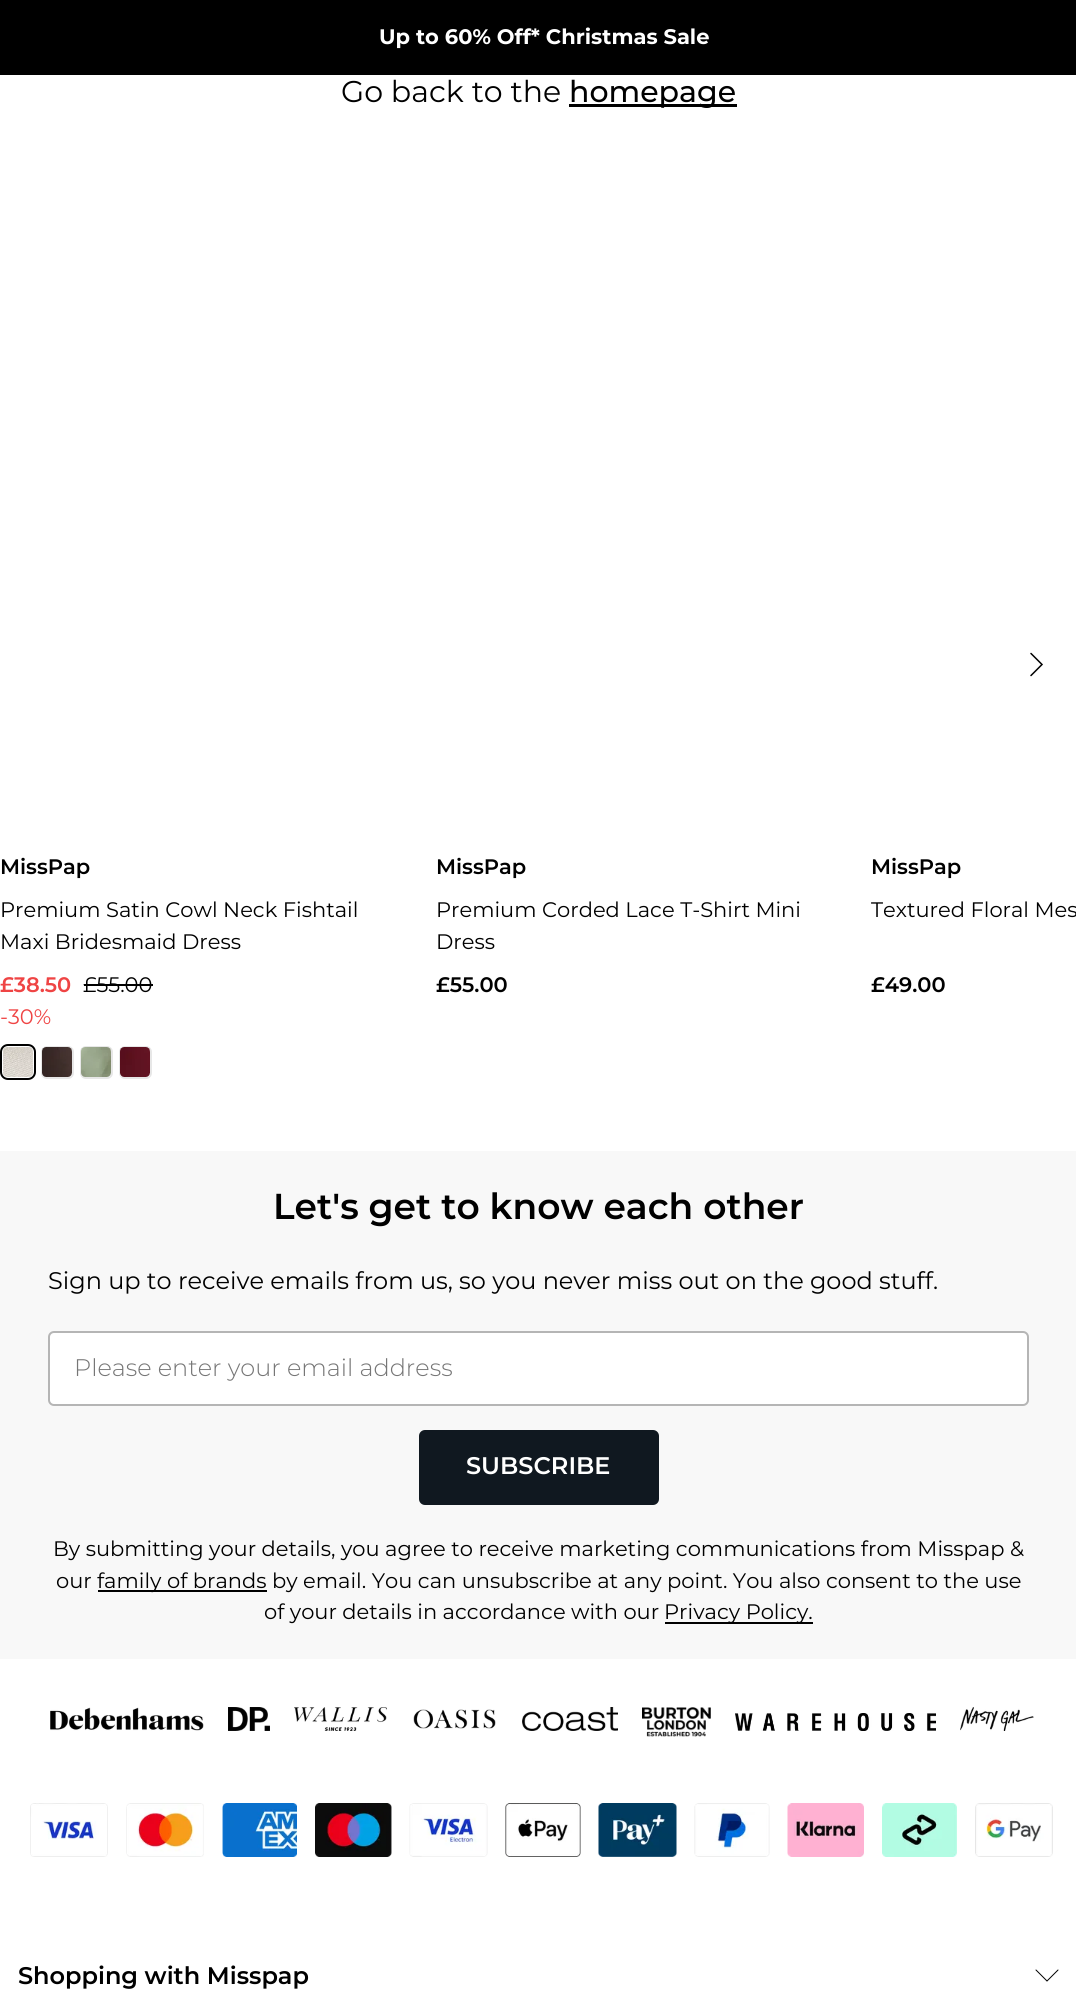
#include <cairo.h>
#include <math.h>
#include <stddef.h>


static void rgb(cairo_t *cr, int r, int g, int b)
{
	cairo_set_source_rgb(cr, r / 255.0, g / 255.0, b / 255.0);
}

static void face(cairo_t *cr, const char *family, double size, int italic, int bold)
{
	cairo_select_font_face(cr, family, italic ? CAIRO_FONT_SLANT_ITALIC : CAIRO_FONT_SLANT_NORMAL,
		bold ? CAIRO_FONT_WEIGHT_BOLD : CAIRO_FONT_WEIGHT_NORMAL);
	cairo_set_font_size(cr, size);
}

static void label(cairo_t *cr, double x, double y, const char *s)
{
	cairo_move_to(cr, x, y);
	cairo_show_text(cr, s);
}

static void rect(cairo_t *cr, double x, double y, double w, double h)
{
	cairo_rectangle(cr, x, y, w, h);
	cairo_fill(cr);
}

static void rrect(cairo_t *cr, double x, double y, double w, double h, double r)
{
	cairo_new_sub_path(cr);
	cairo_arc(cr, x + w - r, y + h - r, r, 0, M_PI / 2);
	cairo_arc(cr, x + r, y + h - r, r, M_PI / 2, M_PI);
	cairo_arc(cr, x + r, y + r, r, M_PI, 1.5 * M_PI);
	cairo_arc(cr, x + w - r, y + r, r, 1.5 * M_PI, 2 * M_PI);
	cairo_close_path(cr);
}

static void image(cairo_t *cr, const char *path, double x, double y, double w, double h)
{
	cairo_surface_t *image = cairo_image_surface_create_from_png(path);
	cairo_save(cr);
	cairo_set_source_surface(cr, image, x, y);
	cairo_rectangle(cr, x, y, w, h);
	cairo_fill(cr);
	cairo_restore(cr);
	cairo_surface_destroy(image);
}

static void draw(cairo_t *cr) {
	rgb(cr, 255, 255, 255);
	cairo_paint(cr);
	rgb(cr, 0, 0, 0);
	rect(cr, 0, 0, 1076, 75);
	face(cr, "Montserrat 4 Thin", 21, 0, 0);
	rgb(cr, 255, 255, 255);
	label(cr, 379, 44, "Up to 60% Off* Christmas Sale");
	face(cr, "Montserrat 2 Thin", 30, 0, 0);
	rgb(cr, 0, 0, 0);
	label(cr, 341, 102, "Go back to the");
	rect(cr, 569, 104, 168, 3);
	face(cr, "Montserrat Medium", 30, 0, 0);
	label(cr, 569, 102, "homepage");
	cairo_new_path(cr);
	cairo_move_to(cr, 1031, 675.5);
	cairo_line_to(cr, 1042, 664.5);
	cairo_line_to(cr, 1031, 653.5);
	cairo_set_line_width(cr, 1.5);
	cairo_set_line_cap(cr, CAIRO_LINE_CAP_ROUND);
	cairo_stroke(cr);
	face(cr, "Montserrat Thin", 21, 0, 0);
	label(cr, 0, 874, "MissPap");
	face(cr, "Montserrat 2 Thin", 21, 0, 0);
	label(cr, 0, 917, "Premium Satin Cowl Neck Fishtail");
	label(cr, 0, 949, "Maxi Bridesmaid Dress");
	face(cr, "Montserrat Thin", 21, 0, 0);
	rgb(cr, 239, 68, 68);
	label(cr, 0, 992, "£38.50");
	face(cr, "Montserrat 2 Thin", 21, 0, 0);
	rgb(cr, 0, 0, 0);
	label(cr, 83, 992, "£55.00");
	rect(cr, 84, 984, 69, 2);
	rgb(cr, 239, 68, 68);
	label(cr, 0, 1024, "-30%");
	image(cr, "image0.png", 3, 1047, 30, 30);
	rrect(cr, 1, 1045, 34, 34, 7);
	rgb(cr, 0, 0, 0);
	cairo_set_line_width(cr, 2);
	cairo_set_line_cap(cr, CAIRO_LINE_CAP_BUTT);
	cairo_stroke(cr);
	rrect(cr, 42, 1047, 31, 31, 5);
	rgb(cr, 231, 231, 231);
	cairo_stroke(cr);
	image(cr, "image1.png", 42, 1047, 30, 30);
	rrect(cr, 81, 1047, 31, 31, 5);
	cairo_stroke(cr);
	image(cr, "image2.png", 81, 1047, 30, 30);
	rrect(cr, 120, 1047, 31, 31, 5);
	cairo_stroke(cr);
	image(cr, "image3.png", 120, 1047, 30, 30);
	face(cr, "Montserrat Thin", 21, 0, 0);
	rgb(cr, 0, 0, 0);
	label(cr, 436, 874, "MissPap");
	face(cr, "Montserrat 2 Thin", 21, 0, 0);
	label(cr, 436, 917, "Premium Corded Lace T-Shirt Mini");
	label(cr, 436, 949, "Dress");
	face(cr, "Montserrat Thin", 21, 0, 0);
	label(cr, 436, 992, "£55.00");
	label(cr, 871, 874, "MissPap");
	face(cr, "Montserrat 2 Thin", 21, 0, 0);
	label(cr, 871, 917, "Textured Floral Mes");
	face(cr, "Montserrat Thin", 21, 0, 0);
	label(cr, 871, 992, "£49.00");
	rgb(cr, 248, 248, 248);
	rect(cr, 0, 1151, 1076, 508);
	face(cr, "Montserrat Thin", 36, 0, 0);
	rgb(cr, 0, 0, 0);
	label(cr, 273, 1219, "Let's get to know each other");
	face(cr, "Montserrat 2 Thin", 24, 0, 0);
	label(cr, 48, 1289, "Sign up to receive emails from us, so you never miss out on the good stuff.");
	rgb(cr, 255, 255, 255);
	rrect(cr, 49, 1332, 979, 73, 5);
	cairo_fill_preserve(cr);
	rgb(cr, 181, 181, 181);
	cairo_stroke(cr);
	face(cr, "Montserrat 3 Thin", 24, 0, 0);
	rgb(cr, 118, 118, 118);
	label(cr, 74, 1376, "Please enter your email address");
	rgb(cr, 16, 24, 32);
	rrect(cr, 419, 1430, 240, 75, 6);
	cairo_fill(cr);
	face(cr, "Montserrat Thin", 24, 0, 0);
	rgb(cr, 255, 255, 255);
	label(cr, 466, 1474, "SUBSCRIBE");
	face(cr, "Montserrat 2 Thin", 21, 0, 0);
	rgb(cr, 0, 0, 0);
	label(cr, 53, 1556, "By submitting your details, you agree to receive marketing communications from Misspap &");
	label(cr, 56, 1588, "our");
	rect(cr, 98, 1590, 169, 2);
	label(cr, 97, 1588, "family of brands by email. You can unsubscribe at any point. You also consent to the use");
	label(cr, 264, 1619, "of your details in accordance with our");
	rect(cr, 665, 1622, 148, 2);
	label(cr, 664, 1619, "Privacy Policy.");
	image(cr, "image4.png", 50, 1707, 154, 24);
	image(cr, "image5.png", 228, 1707, 42, 24);
	image(cr, "image6.png", 294, 1707, 93, 24);
	image(cr, "image7.png", 413, 1709, 83, 20);
	image(cr, "image8.png", 522, 1707, 96, 24);
	image(cr, "image9.png", 642, 1707, 69, 30);
	image(cr, "image10.png", 735, 1713, 201, 18);
	image(cr, "image11.png", 960, 1707, 74, 24);
	image(cr, "image12.png", 30, 1803, 78, 54);
	image(cr, "image13.png", 126, 1803, 78, 54);
	image(cr, "image14.png", 222, 1803, 75, 54);
	image(cr, "image15.png", 315, 1803, 77, 54);
	image(cr, "image16.png", 409, 1803, 79, 54);
	image(cr, "image17.png", 505, 1803, 76, 54);
	image(cr, "image18.png", 598, 1803, 79, 54);
	image(cr, "image19.png", 694, 1803, 76, 54);
	image(cr, "image20.png", 787, 1803, 77, 54);
	image(cr, "image21.png", 882, 1803, 75, 54);
	image(cr, "image22.png", 975, 1803, 78, 54);
	face(cr, "Montserrat Thin", 24, 0, 0);
	label(cr, 18, 1984, "Shopping with Misspap");
	cairo_new_path(cr);
	cairo_move_to(cr, 1036, 1970);
	cairo_line_to(cr, 1047, 1981);
	cairo_line_to(cr, 1058, 1970);
	cairo_set_line_width(cr, 1);
	cairo_set_line_cap(cr, CAIRO_LINE_CAP_ROUND);
	cairo_stroke(cr);
}

int main(void) {
	cairo_surface_t *surface = cairo_image_surface_create(CAIRO_FORMAT_RGB24, 1076, 1993);
	cairo_t *cr = cairo_create(surface);
	cairo_font_options_t *options = cairo_font_options_create();
	cairo_font_options_set_hint_metrics(options, CAIRO_HINT_METRICS_OFF);
	cairo_font_options_set_hint_style(options, CAIRO_HINT_STYLE_NONE);
	cairo_set_font_options(cr, options);
	cairo_set_miter_limit(cr, 4);
	draw(cr);
	cairo_surface_write_to_png(surface, "render.png");
	cairo_font_options_destroy(options);
	cairo_destroy(cr);
	cairo_surface_destroy(surface);
	return 0;
}
